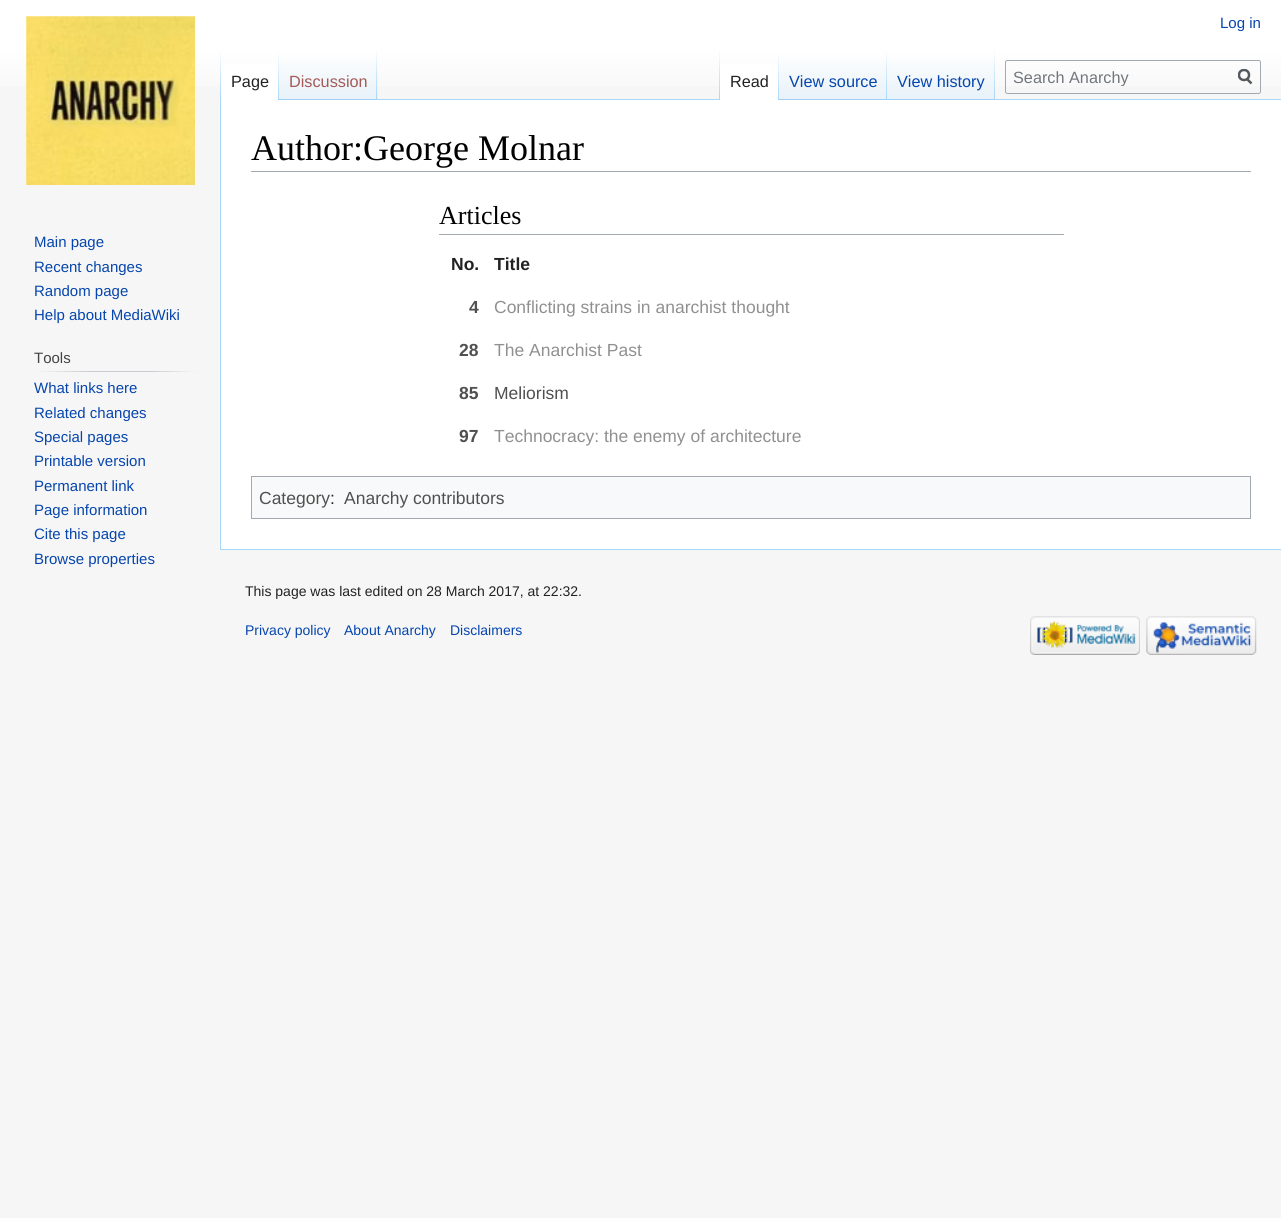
#include <cairo.h>
#include <math.h>
#include <stddef.h>


static void rgb(cairo_t *cr, int r, int g, int b)
{
	cairo_set_source_rgb(cr, r / 255.0, g / 255.0, b / 255.0);
}

static void face(cairo_t *cr, const char *family, double size, int italic, int bold)
{
	cairo_select_font_face(cr, family, italic ? CAIRO_FONT_SLANT_ITALIC : CAIRO_FONT_SLANT_NORMAL,
		bold ? CAIRO_FONT_WEIGHT_BOLD : CAIRO_FONT_WEIGHT_NORMAL);
	cairo_set_font_size(cr, size);
}

static void label(cairo_t *cr, double x, double y, const char *s)
{
	cairo_move_to(cr, x, y);
	cairo_show_text(cr, s);
}

static void rect(cairo_t *cr, double x, double y, double w, double h)
{
	cairo_rectangle(cr, x, y, w, h);
	cairo_fill(cr);
}

static void rrect(cairo_t *cr, double x, double y, double w, double h, double r)
{
	cairo_new_sub_path(cr);
	cairo_arc(cr, x + w - r, y + h - r, r, 0, M_PI / 2);
	cairo_arc(cr, x + r, y + h - r, r, M_PI / 2, M_PI);
	cairo_arc(cr, x + r, y + r, r, M_PI, 1.5 * M_PI);
	cairo_arc(cr, x + w - r, y + r, r, 1.5 * M_PI, 2 * M_PI);
	cairo_close_path(cr);
}

static void image(cairo_t *cr, const char *path, double x, double y, double w, double h)
{
	cairo_surface_t *image = cairo_image_surface_create_from_png(path);
	cairo_save(cr);
	cairo_set_source_surface(cr, image, x, y);
	cairo_rectangle(cr, x, y, w, h);
	cairo_fill(cr);
	cairo_restore(cr);
	cairo_surface_destroy(image);
}

static void draw(cairo_t *cr) {
	cairo_pattern_t *gradient;
	rgb(cr, 246, 246, 246);
	cairo_paint(cr);
	gradient = cairo_pattern_create_linear(641, 0, 641, 100);
	cairo_pattern_add_color_stop_rgba(gradient, 0.5, 1, 1, 1, 1);
	cairo_pattern_add_color_stop_rgba(gradient, 1, 0.965, 0.965, 0.965, 1);
	cairo_set_source(cr, gradient);
	cairo_pattern_destroy(gradient);
	rect(cr, 0, 0, 1281, 86);
	face(cr, "Liberation Sans", 15, 0, 0);
	rgb(cr, 6, 69, 173);
	label(cr, 1220, 28, "Log in");
	rgb(cr, 167, 215, 249);
	rect(cr, 220, 549, 1061, 1);
	rect(cr, 220, 99, 1, 451);
	gradient = cairo_pattern_create_linear(221, 50, 221, 100);
	cairo_pattern_add_color_stop_rgba(gradient, 0, 0.655, 0.843, 0.976, 0);
	cairo_pattern_add_color_stop_rgba(gradient, 1, 0.655, 0.843, 0.976, 1);
	cairo_set_source(cr, gradient);
	cairo_pattern_destroy(gradient);
	rect(cr, 220, 50, 1, 50);
	rgb(cr, 255, 255, 255);
	rect(cr, 221, 64, 57, 36);
	gradient = cairo_pattern_create_linear(278, 50, 278, 100);
	cairo_pattern_add_color_stop_rgba(gradient, 0, 1, 1, 1, 1);
	cairo_pattern_add_color_stop_rgba(gradient, 1, 0.655, 0.843, 0.976, 1);
	cairo_set_source(cr, gradient);
	cairo_pattern_destroy(gradient);
	rect(cr, 278, 50, 1, 50);
	face(cr, "Liberation Sans", 16.25, 0, 0);
	rgb(cr, 34, 34, 34);
	label(cr, 231, 87, "Page");
	gradient = cairo_pattern_create_linear(328, 100, 328, 50);
	cairo_pattern_add_color_stop_rgba(gradient, 0, 0.467, 0.757, 0.965, 1);
	cairo_pattern_add_color_stop_rgba(gradient, 0.03, 0.91, 0.949, 0.973, 1);
	cairo_pattern_add_color_stop_rgba(gradient, 1, 1, 1, 1, 1);
	cairo_set_source(cr, gradient);
	cairo_pattern_destroy(gradient);
	rect(cr, 279, 57, 99, 43);
	gradient = cairo_pattern_create_linear(377, 50, 377, 100);
	cairo_pattern_add_color_stop_rgba(gradient, 0, 0.655, 0.843, 0.976, 0);
	cairo_pattern_add_color_stop_rgba(gradient, 1, 0.655, 0.843, 0.976, 1);
	cairo_set_source(cr, gradient);
	cairo_pattern_destroy(gradient);
	rect(cr, 376, 50, 1, 50);
	rgb(cr, 165, 88, 88);
	label(cr, 289, 87, "Discussion");
	rgb(cr, 167, 215, 249);
	rect(cr, 378, 99, 903, 1);
	gradient = cairo_pattern_create_linear(719, 50, 719, 100);
	cairo_pattern_add_color_stop_rgba(gradient, 0, 0.655, 0.843, 0.976, 0);
	cairo_pattern_add_color_stop_rgba(gradient, 1, 0.655, 0.843, 0.976, 1);
	cairo_set_source(cr, gradient);
	cairo_pattern_destroy(gradient);
	rect(cr, 719, 50, 1, 50);
	rgb(cr, 255, 255, 255);
	rect(cr, 720, 64, 58, 36);
	gradient = cairo_pattern_create_linear(778, 50, 778, 100);
	cairo_pattern_add_color_stop_rgba(gradient, 0, 1, 1, 1, 1);
	cairo_pattern_add_color_stop_rgba(gradient, 1, 0.655, 0.843, 0.976, 1);
	cairo_set_source(cr, gradient);
	cairo_pattern_destroy(gradient);
	rect(cr, 778, 50, 1, 50);
	rgb(cr, 34, 34, 34);
	label(cr, 730, 87, "Read");
	gradient = cairo_pattern_create_linear(833, 100, 833, 50);
	cairo_pattern_add_color_stop_rgba(gradient, 0, 0.467, 0.757, 0.965, 1);
	cairo_pattern_add_color_stop_rgba(gradient, 0.03, 0.91, 0.949, 0.973, 1);
	cairo_pattern_add_color_stop_rgba(gradient, 1, 1, 1, 1, 1);
	cairo_set_source(cr, gradient);
	cairo_pattern_destroy(gradient);
	rect(cr, 779, 57, 109, 43);
	gradient = cairo_pattern_create_linear(887, 50, 887, 100);
	cairo_pattern_add_color_stop_rgba(gradient, 0, 0.655, 0.843, 0.976, 0);
	cairo_pattern_add_color_stop_rgba(gradient, 1, 0.655, 0.843, 0.976, 1);
	cairo_set_source(cr, gradient);
	cairo_pattern_destroy(gradient);
	rect(cr, 886, 50, 1, 50);
	rgb(cr, 6, 69, 173);
	label(cr, 789, 87, "View source");
	gradient = cairo_pattern_create_linear(941, 100, 941, 50);
	cairo_pattern_add_color_stop_rgba(gradient, 0, 0.467, 0.757, 0.965, 1);
	cairo_pattern_add_color_stop_rgba(gradient, 0.03, 0.91, 0.949, 0.973, 1);
	cairo_pattern_add_color_stop_rgba(gradient, 1, 1, 1, 1, 1);
	cairo_set_source(cr, gradient);
	cairo_pattern_destroy(gradient);
	rect(cr, 888, 57, 107, 43);
	gradient = cairo_pattern_create_linear(994, 50, 994, 100);
	cairo_pattern_add_color_stop_rgba(gradient, 0, 0.655, 0.843, 0.976, 0);
	cairo_pattern_add_color_stop_rgba(gradient, 1, 0.655, 0.843, 0.976, 1);
	cairo_set_source(cr, gradient);
	cairo_pattern_destroy(gradient);
	rect(cr, 994, 50, 1, 50);
	rgb(cr, 6, 69, 173);
	label(cr, 897, 87, "View history");
	rrect(cr, 1005.5, 60.5, 255, 33, 2);
	rgb(cr, 162, 169, 177);
	cairo_set_line_width(cr, 1);
	cairo_stroke(cr);
	cairo_save(cr);
	cairo_rectangle(cr, 1013, 68, 201, 18);
	cairo_clip(cr);
	rgb(cr, 114, 119, 125);
	label(cr, 1013, 83, "Search Anarchy");
	cairo_restore(cr);
	cairo_new_path(cr);
	cairo_move_to(cr, 1251.5, 83.5);
	cairo_line_to(cr, 1246.5, 78.5);
	rgb(cr, 84, 89, 93);
	cairo_set_line_width(cr, 2.5);
	cairo_stroke(cr);
	cairo_save(cr);
	cairo_rectangle(cr, 1238, 69, 15, 16);
	cairo_clip(cr);
	cairo_arc(cr, 1244, 75, 5, 0, 2 * M_PI);
	cairo_stroke(cr);
	cairo_restore(cr);
	image(cr, "image0.png", 26, 16, 169, 169);
	face(cr, "Liberation Sans", 15, 0, 0);
	rgb(cr, 6, 69, 173);
	label(cr, 34, 247, "Main page");
	label(cr, 34, 272, "Recent changes");
	label(cr, 34, 296, "Random page");
	label(cr, 34, 320, "Help about MediaWiki");
	rgb(cr, 68, 68, 68);
	label(cr, 34, 363, "Tools");
	gradient = cairo_pattern_create_linear(34, 372, 198, 372);
	cairo_pattern_add_color_stop_rgba(gradient, 0, 0.965, 0.965, 0.965, 1);
	cairo_pattern_add_color_stop_rgba(gradient, 0.35, 0.784, 0.8, 0.82, 1);
	cairo_pattern_add_color_stop_rgba(gradient, 0.7, 0.784, 0.8, 0.82, 1);
	cairo_pattern_add_color_stop_rgba(gradient, 1, 0.965, 0.965, 0.965, 1);
	cairo_set_source(cr, gradient);
	cairo_pattern_destroy(gradient);
	rect(cr, 34, 371, 164, 1);
	rgb(cr, 6, 69, 173);
	label(cr, 34, 393, "What links here");
	label(cr, 34, 418, "Related changes");
	label(cr, 34, 442, "Special pages");
	label(cr, 34, 466, "Printable version");
	label(cr, 34, 491, "Permanent link");
	label(cr, 34, 515, "Page information");
	label(cr, 34, 539, "Cite this page");
	label(cr, 34, 564, "Browse properties");
	rgb(cr, 255, 255, 255);
	rect(cr, 221, 100, 1060, 449);
	rgb(cr, 162, 169, 177);
	rect(cr, 251, 171, 1000, 1);
	face(cr, "Liberation Serif", 36, 0, 0);
	rgb(cr, 0, 0, 0);
	label(cr, 251, 160, "Author:George Molnar");
	rgb(cr, 162, 169, 177);
	rect(cr, 439, 234, 625, 1);
	face(cr, "Liberation Serif", 26, 0, 0);
	rgb(cr, 0, 0, 0);
	label(cr, 439, 224, "Articles");
	face(cr, "Liberation Sans", 17.5, 0, 1);
	rgb(cr, 34, 34, 34);
	label(cr, 451, 270, "No.");
	label(cr, 494, 270, "Title");
	rgb(cr, 80, 80, 80);
	label(cr, 469, 313, "4");
	face(cr, "Liberation Sans", 17.5, 0, 0);
	rgb(cr, 144, 144, 144);
	label(cr, 494, 313, "Conflicting strains in anarchist thought");
	face(cr, "Liberation Sans", 17.5, 0, 1);
	rgb(cr, 80, 80, 80);
	label(cr, 459, 356, "28");
	face(cr, "Liberation Sans", 17.5, 0, 0);
	rgb(cr, 144, 144, 144);
	label(cr, 494, 356, "The Anarchist Past");
	face(cr, "Liberation Sans", 17.5, 0, 1);
	rgb(cr, 80, 80, 80);
	label(cr, 459, 399, "85");
	face(cr, "Liberation Sans", 17.5, 0, 0);
	label(cr, 494, 399, "Meliorism");
	face(cr, "Liberation Sans", 17.5, 0, 1);
	label(cr, 459, 442, "97");
	face(cr, "Liberation Sans", 17.5, 0, 0);
	rgb(cr, 144, 144, 144);
	label(cr, 494, 442, "Technocracy: the enemy of architecture");
	rgb(cr, 248, 249, 250);
	cairo_rectangle(cr, 251.5, 476.5, 999, 42);
	cairo_fill_preserve(cr);
	rgb(cr, 162, 169, 177);
	cairo_set_line_width(cr, 1);
	cairo_stroke(cr);
	rgb(cr, 80, 80, 80);
	label(cr, 259, 504, "Category");
	rgb(cr, 34, 34, 34);
	label(cr, 330, 504, ":");
	rgb(cr, 80, 80, 80);
	label(cr, 344, 504, "Anarchy contributors");
	face(cr, "Liberation Sans", 14, 0, 0);
	rgb(cr, 34, 34, 34);
	label(cr, 245, 596, "This page was last edited on 28 March 2017, at 22:32.");
	rgb(cr, 6, 69, 173);
	label(cr, 245, 635, "Privacy policy");
	label(cr, 344, 635, "About Anarchy");
	label(cr, 450, 635, "Disclaimers");
	image(cr, "image1.png", 1030, 616, 110, 39);
	image(cr, "image2.png", 1146, 616, 111, 39);
}

int main(void) {
	cairo_surface_t *surface = cairo_image_surface_create(CAIRO_FORMAT_RGB24, 1281, 1218);
	cairo_t *cr = cairo_create(surface);
	cairo_font_options_t *options = cairo_font_options_create();
	cairo_font_options_set_hint_metrics(options, CAIRO_HINT_METRICS_OFF);
	cairo_font_options_set_hint_style(options, CAIRO_HINT_STYLE_NONE);
	cairo_set_font_options(cr, options);
	cairo_set_miter_limit(cr, 4);
	draw(cr);
	cairo_surface_write_to_png(surface, "render.png");
	cairo_font_options_destroy(options);
	cairo_destroy(cr);
	cairo_surface_destroy(surface);
	return 0;
}
